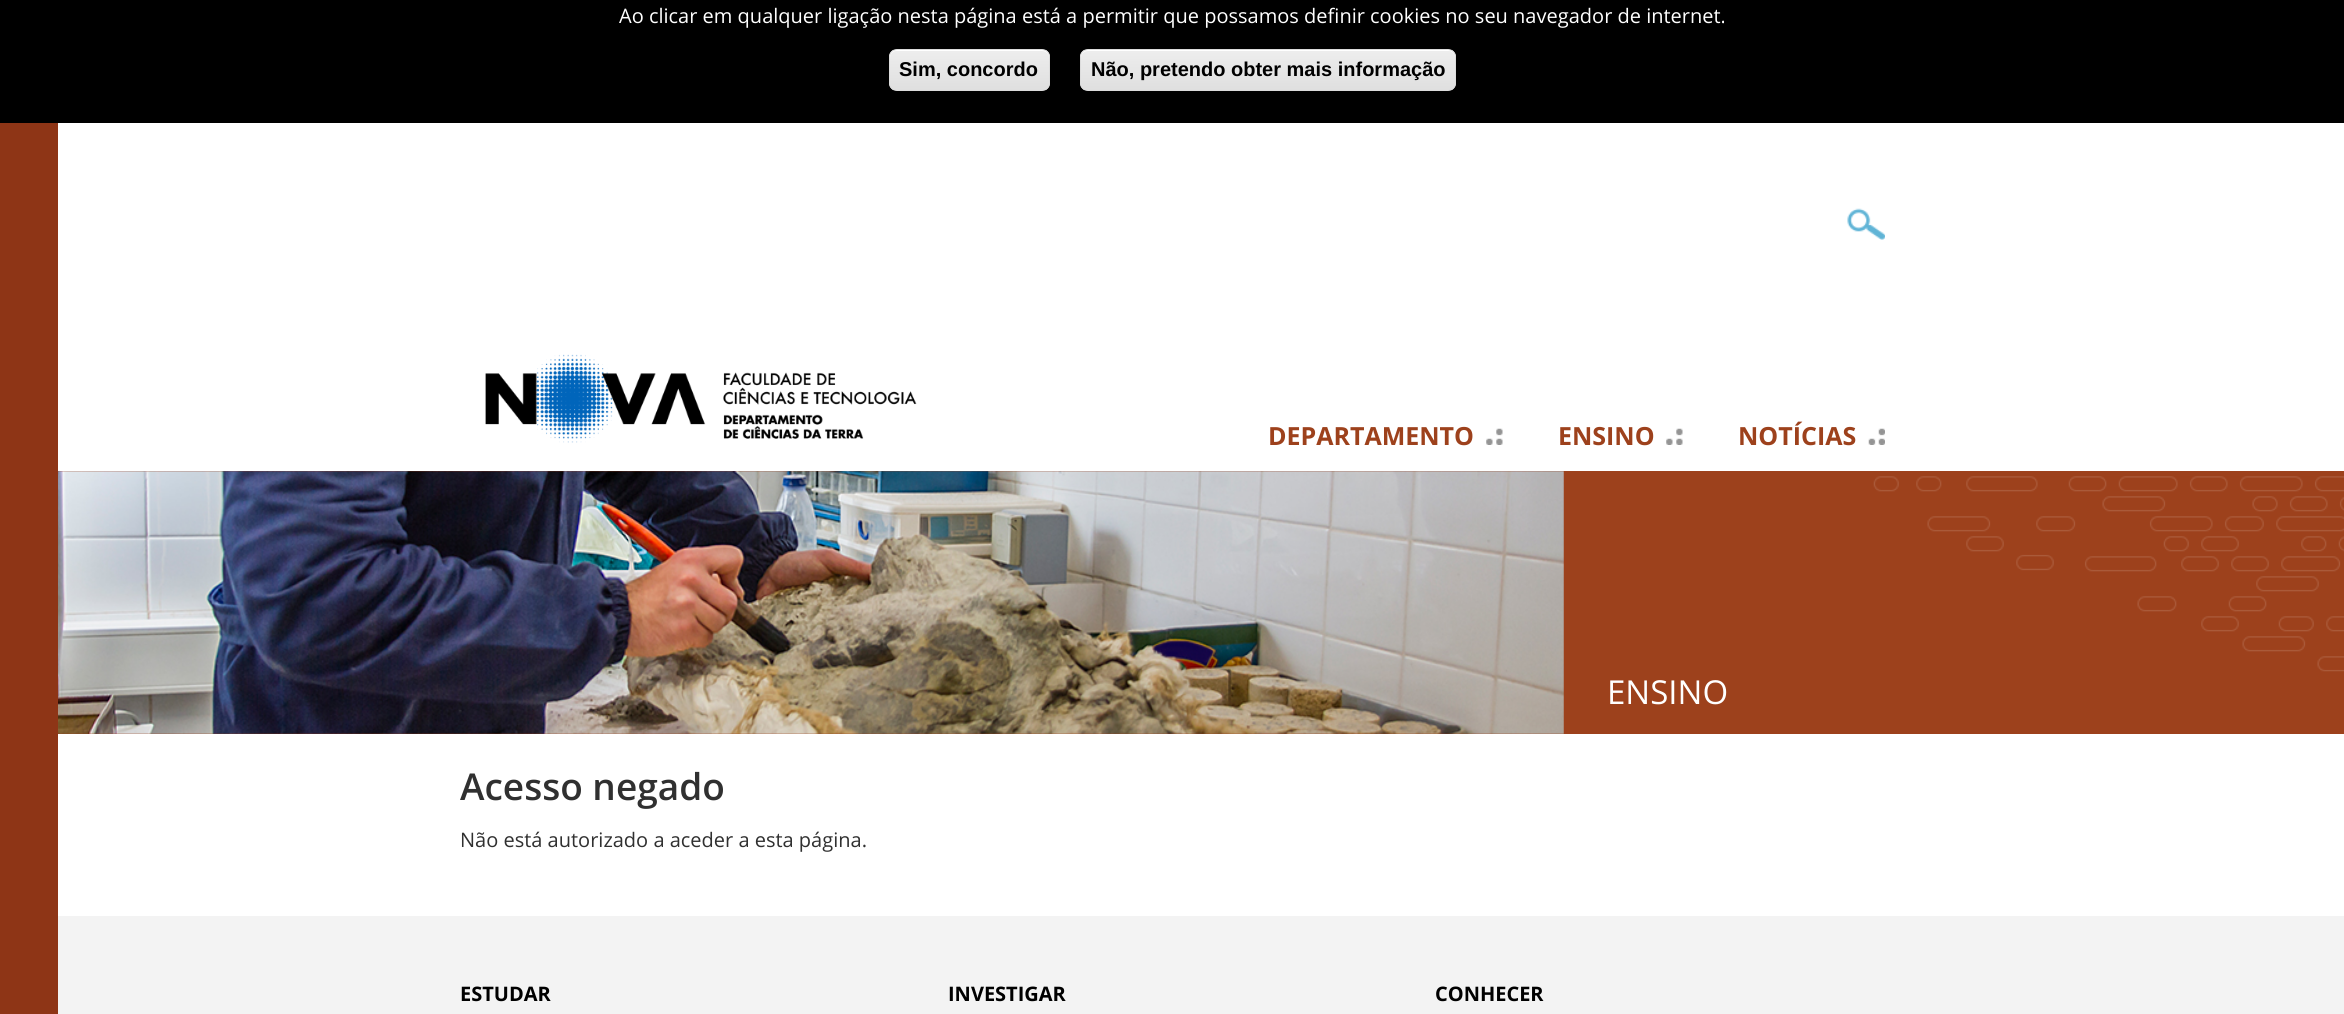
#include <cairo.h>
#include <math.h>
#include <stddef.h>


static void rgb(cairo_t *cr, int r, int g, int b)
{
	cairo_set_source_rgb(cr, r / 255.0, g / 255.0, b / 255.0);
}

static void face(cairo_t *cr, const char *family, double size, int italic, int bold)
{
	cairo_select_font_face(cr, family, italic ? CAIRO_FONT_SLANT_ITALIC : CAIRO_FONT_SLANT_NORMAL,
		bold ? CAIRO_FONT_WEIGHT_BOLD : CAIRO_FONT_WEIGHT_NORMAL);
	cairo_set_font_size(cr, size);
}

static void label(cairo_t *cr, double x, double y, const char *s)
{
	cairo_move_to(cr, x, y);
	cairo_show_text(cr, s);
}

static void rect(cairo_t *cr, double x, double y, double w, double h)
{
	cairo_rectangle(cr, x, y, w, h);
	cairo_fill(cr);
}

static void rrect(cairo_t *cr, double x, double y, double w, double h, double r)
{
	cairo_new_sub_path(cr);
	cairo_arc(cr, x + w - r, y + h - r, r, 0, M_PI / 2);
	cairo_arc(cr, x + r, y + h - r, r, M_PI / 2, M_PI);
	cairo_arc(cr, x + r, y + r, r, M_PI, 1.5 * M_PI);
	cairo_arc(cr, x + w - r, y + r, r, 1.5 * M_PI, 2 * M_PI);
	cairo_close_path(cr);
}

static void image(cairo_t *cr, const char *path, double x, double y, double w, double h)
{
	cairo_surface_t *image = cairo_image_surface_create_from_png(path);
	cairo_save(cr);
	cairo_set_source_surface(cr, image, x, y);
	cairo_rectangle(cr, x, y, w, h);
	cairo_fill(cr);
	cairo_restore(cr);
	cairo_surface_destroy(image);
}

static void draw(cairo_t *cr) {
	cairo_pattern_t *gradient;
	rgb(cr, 255, 255, 255);
	cairo_paint(cr);
	rgb(cr, 0, 0, 0);
	rect(cr, 0, 0, 2344, 123);
	face(cr, "Open Sans", 20, 0, 0);
	rgb(cr, 255, 255, 255);
	label(cr, 619, 23, "Ao clicar em qualquer ligação nesta página está a permitir que possamos definir cookies no seu navegador de internet.");
	cairo_save(cr);
	rrect(cr, 889, 49, 161, 42, 8);
	cairo_clip(cr);
	gradient = cairo_pattern_create_linear(890, 50, 890, 90);
	cairo_pattern_add_color_stop_rgba(gradient, 0.05, 0.929, 0.929, 0.929, 1);
	cairo_pattern_add_color_stop_rgba(gradient, 1, 0.875, 0.875, 0.875, 1);
	cairo_set_source(cr, gradient);
	cairo_pattern_destroy(gradient);
	rect(cr, 889, 50, 161, 40);
	cairo_restore(cr);
	cairo_new_path(cr);
	cairo_move_to(cr, 896, 51);
	cairo_line_to(cr, 1042, 51);
	cairo_curve_to(cr, 1046, 51, 1049, 54, 1049, 58);
	cairo_line_to(cr, 1049, 56);
	cairo_curve_to(cr, 1049, 53, 1046, 50, 1043, 50);
	cairo_line_to(cr, 896, 50);
	cairo_curve_to(cr, 893, 50, 890, 53, 890, 56);
	cairo_line_to(cr, 890, 58);
	cairo_curve_to(cr, 890, 54, 893, 51, 896, 51);
	cairo_close_path(cr);
	cairo_fill(cr);
	rrect(cr, 889.5, 49.5, 160, 41, 7.5);
	rgb(cr, 220, 220, 220);
	cairo_set_line_width(cr, 1);
	cairo_stroke(cr);
	face(cr, "Liberation Sans", 20, 0, 1);
	rgb(cr, 0, 0, 0);
	label(cr, 899, 76, "Sim, concordo");
	cairo_save(cr);
	rrect(cr, 1080, 49, 376, 42, 8);
	cairo_clip(cr);
	gradient = cairo_pattern_create_linear(1081, 50, 1081, 90);
	cairo_pattern_add_color_stop_rgba(gradient, 0.05, 0.929, 0.929, 0.929, 1);
	cairo_pattern_add_color_stop_rgba(gradient, 1, 0.875, 0.875, 0.875, 1);
	cairo_set_source(cr, gradient);
	cairo_pattern_destroy(gradient);
	rect(cr, 1080, 50, 376, 40);
	cairo_restore(cr);
	rgb(cr, 255, 255, 255);
	cairo_new_path(cr);
	cairo_move_to(cr, 1088, 51);
	cairo_line_to(cr, 1449, 51);
	cairo_curve_to(cr, 1452, 51, 1455, 54, 1455, 58);
	cairo_line_to(cr, 1455, 56);
	cairo_curve_to(cr, 1455, 53, 1452, 50, 1449, 50);
	cairo_line_to(cr, 1087, 50);
	cairo_curve_to(cr, 1084, 50, 1081, 53, 1081, 56);
	cairo_line_to(cr, 1081, 58);
	cairo_curve_to(cr, 1081, 54, 1084, 51, 1088, 51);
	cairo_close_path(cr);
	cairo_fill(cr);
	rrect(cr, 1080.5, 49.5, 375, 41, 7.5);
	rgb(cr, 220, 220, 220);
	cairo_stroke(cr);
	rgb(cr, 0, 0, 0);
	label(cr, 1091, 76, "Não, pretendo obter mais informação");
	rgb(cr, 142, 53, 22);
	rect(cr, 0, 123, 58, 891);
	image(cr, "image0.png", 1847, 208, 38, 32);
	image(cr, "image1.png", 485, 354, 432, 89);
	face(cr, "Open Sans", 25, 0, 1);
	rgb(cr, 157, 65, 28);
	label(cr, 1268, 445, "DEPARTAMENTO");
	image(cr, "image2.png", 1486, 428, 17, 17);
	label(cr, 1558, 445, "ENSINO");
	image(cr, "image2.png", 1666, 428, 17, 17);
	label(cr, 1738, 445, "NOTÍCIAS");
	image(cr, "image3.png", 1868, 428, 17, 17);
	rect(cr, 58, 471, 2286, 263);
	image(cr, "image4.png", 58, 471, 1506, 263);
	image(cr, "image5.png", 1873, 476, 471, 196);
	face(cr, "Open Sans", 33, 0, 0);
	rgb(cr, 255, 255, 255);
	label(cr, 1607, 704, "ENSINO");
	face(cr, "Open Sans SemiBold", 37, 0, 0);
	rgb(cr, 48, 48, 48);
	label(cr, 460, 800, "Acesso negado");
	face(cr, "Open Sans", 20, 0, 0);
	label(cr, 460, 847, "Não está autorizado a aceder a esta página.");
	rgb(cr, 243, 243, 243);
	rect(cr, 58, 916, 2286, 98);
	face(cr, "Open Sans", 20, 0, 1);
	rgb(cr, 0, 0, 0);
	label(cr, 460, 1001, "ESTUDAR");
	label(cr, 948, 1001, "INVESTIGAR");
	label(cr, 1435, 1001, "CONHECER");
}

int main(void) {
	cairo_surface_t *surface = cairo_image_surface_create(CAIRO_FORMAT_RGB24, 2344, 1014);
	cairo_t *cr = cairo_create(surface);
	cairo_font_options_t *options = cairo_font_options_create();
	cairo_font_options_set_hint_metrics(options, CAIRO_HINT_METRICS_OFF);
	cairo_font_options_set_hint_style(options, CAIRO_HINT_STYLE_NONE);
	cairo_set_font_options(cr, options);
	cairo_set_miter_limit(cr, 4);
	draw(cr);
	cairo_surface_write_to_png(surface, "render.png");
	cairo_font_options_destroy(options);
	cairo_destroy(cr);
	cairo_surface_destroy(surface);
	return 0;
}
